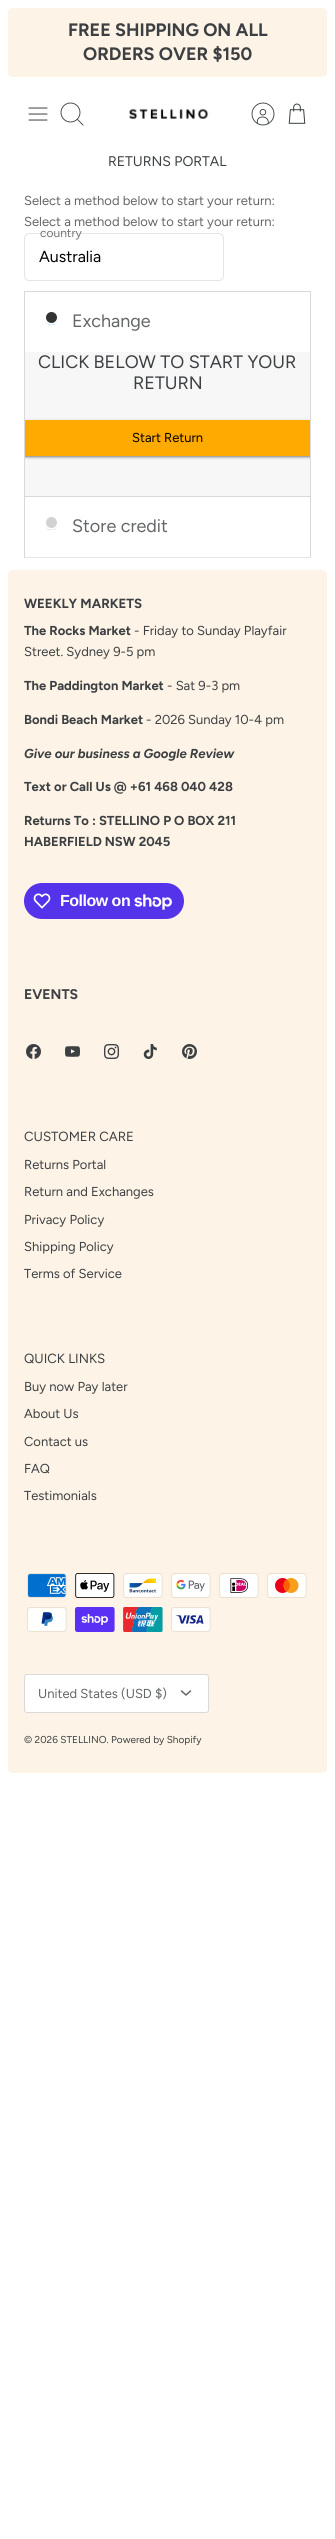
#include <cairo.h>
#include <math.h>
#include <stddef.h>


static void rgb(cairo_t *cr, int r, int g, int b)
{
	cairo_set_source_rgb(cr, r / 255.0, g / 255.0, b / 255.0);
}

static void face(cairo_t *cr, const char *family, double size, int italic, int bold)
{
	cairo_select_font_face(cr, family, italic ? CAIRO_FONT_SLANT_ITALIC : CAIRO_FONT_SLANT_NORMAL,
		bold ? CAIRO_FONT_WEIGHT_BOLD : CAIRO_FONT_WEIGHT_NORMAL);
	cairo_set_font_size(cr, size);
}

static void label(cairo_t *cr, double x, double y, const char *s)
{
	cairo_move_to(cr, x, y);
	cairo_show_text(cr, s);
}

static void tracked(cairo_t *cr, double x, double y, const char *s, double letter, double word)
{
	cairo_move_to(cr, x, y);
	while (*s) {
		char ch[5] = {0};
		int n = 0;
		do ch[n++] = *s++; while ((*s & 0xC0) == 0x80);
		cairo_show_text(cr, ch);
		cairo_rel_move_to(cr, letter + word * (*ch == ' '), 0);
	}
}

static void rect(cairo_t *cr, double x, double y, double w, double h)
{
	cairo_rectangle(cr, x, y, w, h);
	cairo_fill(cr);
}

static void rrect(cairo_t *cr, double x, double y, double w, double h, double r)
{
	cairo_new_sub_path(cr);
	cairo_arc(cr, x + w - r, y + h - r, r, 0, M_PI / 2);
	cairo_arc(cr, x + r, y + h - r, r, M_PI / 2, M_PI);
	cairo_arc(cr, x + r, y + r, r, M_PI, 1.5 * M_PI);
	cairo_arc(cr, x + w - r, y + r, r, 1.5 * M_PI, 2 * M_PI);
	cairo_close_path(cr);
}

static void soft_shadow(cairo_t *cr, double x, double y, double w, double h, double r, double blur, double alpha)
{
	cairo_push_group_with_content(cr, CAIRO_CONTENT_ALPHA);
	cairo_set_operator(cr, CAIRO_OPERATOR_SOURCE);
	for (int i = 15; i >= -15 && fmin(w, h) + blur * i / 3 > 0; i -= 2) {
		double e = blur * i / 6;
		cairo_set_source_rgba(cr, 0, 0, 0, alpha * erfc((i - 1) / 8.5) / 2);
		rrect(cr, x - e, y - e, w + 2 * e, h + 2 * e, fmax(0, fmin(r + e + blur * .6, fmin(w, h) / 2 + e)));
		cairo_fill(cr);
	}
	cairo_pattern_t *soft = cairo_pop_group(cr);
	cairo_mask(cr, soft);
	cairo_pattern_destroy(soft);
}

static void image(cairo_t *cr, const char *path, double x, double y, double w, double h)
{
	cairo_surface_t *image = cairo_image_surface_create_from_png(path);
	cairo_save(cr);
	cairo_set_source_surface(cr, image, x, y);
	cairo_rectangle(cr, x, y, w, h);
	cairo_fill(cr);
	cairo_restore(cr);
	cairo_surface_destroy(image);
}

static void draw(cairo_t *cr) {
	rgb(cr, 255, 255, 255);
	cairo_paint(cr);
	rgb(cr, 253, 243, 230);
	rrect(cr, 8, 8, 319, 69, 5);
	cairo_fill(cr);
	face(cr, "Figtree", 18, 0, 1);
	rgb(cr, 60, 64, 67);
	label(cr, 68, 36, "FREE SHIPPING ON ALL");
	label(cr, 83, 60, "ORDERS OVER $150");
	image(cr, "image0.png", 28, 107, 20, 14);
	cairo_arc(cr, 70.5, 112.5, 9.5, 0, 2 * M_PI);
	cairo_set_line_width(cr, 0.9);
	cairo_stroke(cr);
	cairo_new_path(cr);
	cairo_move_to(cr, 77.5, 119.5);
	cairo_line_to(cr, 83, 125);
	cairo_set_line_cap(cr, CAIRO_LINE_CAP_SQUARE);
	cairo_stroke(cr);
	image(cr, "image1.png", 129, 108, 80, 11);
	cairo_new_path(cr);
	cairo_move_to(cr, 268, 124);
	cairo_curve_to(cr, 270.5, 115, 255, 114.5, 257.5, 123.5);
	cairo_set_line_cap(cr, CAIRO_LINE_CAP_BUTT);
	cairo_stroke(cr);
	cairo_arc(cr, 262.9, 112.2, 2.8, 0, 2 * M_PI);
	cairo_stroke(cr);
	cairo_arc(cr, 263, 114, 11, 0, 2 * M_PI);
	cairo_stroke(cr);
	image(cr, "image2.png", 288, 103, 18, 21);
	face(cr, "Figtree", 14, 0, 0);
	label(cr, 108, 166, "RETURNS PORTAL");
	face(cr, "Figtree", 13, 0, 0);
	rgb(cr, 99, 102, 105);
	label(cr, 24, 205, "Select a method below to start your return:");
	label(cr, 24, 226, "Select a method below to start your return:");
	rrect(cr, 24.5, 233.5, 199, 47, 4.5);
	rgb(cr, 229, 229, 231);
	cairo_set_line_width(cr, 1);
	cairo_stroke(cr);
	face(cr, "Figtree", 12, 0, 0);
	rgb(cr, 117, 117, 119);
	label(cr, 40, 237, "country");
	face(cr, "Figtree", 16, 0, 0);
	rgb(cr, 0, 0, 0);
	label(cr, 39, 262, "Australia");
	rgb(cr, 217, 217, 217);
	rect(cr, 24, 291, 287, 1);
	rect(cr, 310, 291, 1, 205);
	rect(cr, 24, 291, 1, 205);
	cairo_new_path(cr);
	cairo_arc(cr, 51.5, 318.5, 6, 0, 2 * M_PI);
	rgb(cr, 0, 117, 255);
	cairo_stroke(cr);
	rgb(cr, 51, 51, 51);
	cairo_arc(cr, 51.5, 317.5, 6.5, 0, 2 * M_PI);
	cairo_fill_preserve(cr);
	rgb(cr, 255, 255, 255);
	cairo_set_line_width(cr, 2);
	cairo_stroke(cr);
	face(cr, "Figtree", 18, 0, 0);
	rgb(cr, 99, 102, 105);
	label(cr, 72, 327, "Exchange");
	rgb(cr, 247, 247, 247);
	rect(cr, 25, 352, 285, 144);
	rgb(cr, 60, 64, 67);
	label(cr, 38, 368, "CLICK BELOW TO START YOUR");
	label(cr, 133, 389, "RETURN");
	cairo_save(cr);
	cairo_rectangle(cr, 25, 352, 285, 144);
	cairo_clip(cr);
	rgb(cr, 0, 0, 0);
	soft_shadow(cr, 18, 421, 300, 36, 8, 2.5, 0.12);
	soft_shadow(cr, 18, 422, 300, 36, 8, 1, 0.14);
	cairo_restore(cr);
	cairo_save(cr);
	cairo_rectangle(cr, 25, 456, 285, 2);
	cairo_clip(cr);
	rgb(cr, 0, 0, 0);
	soft_shadow(cr, 20, 425, 296, 32, 6, 0.5, 0.2);
	cairo_restore(cr);
	cairo_save(cr);
	cairo_rectangle(cr, 25, 352, 285, 144);
	cairo_clip(cr);
	rgb(cr, 255, 170, 0);
	rrect(cr, 18, 420, 300, 36, 8);
	cairo_fill(cr);
	cairo_restore(cr);
	face(cr, "Figtree", 13, 0, 0);
	rgb(cr, 0, 0, 0);
	label(cr, 132, 442, "Start Return");
	rgb(cr, 217, 217, 217);
	rect(cr, 24, 496, 287, 1);
	rect(cr, 310, 496, 1, 62);
	rgb(cr, 229, 229, 231);
	rect(cr, 24, 557, 287, 1);
	rgb(cr, 217, 217, 217);
	rect(cr, 24, 496, 1, 62);
	cairo_new_path(cr);
	cairo_arc(cr, 51.5, 523.5, 6, 0, 2 * M_PI);
	rgb(cr, 118, 118, 118);
	cairo_set_line_width(cr, 1);
	cairo_stroke(cr);
	rgb(cr, 209, 211, 209);
	cairo_arc(cr, 51.5, 522.5, 6.5, 0, 2 * M_PI);
	cairo_fill_preserve(cr);
	rgb(cr, 255, 255, 255);
	cairo_set_line_width(cr, 2);
	cairo_stroke(cr);
	face(cr, "Figtree", 18, 0, 0);
	rgb(cr, 99, 102, 105);
	label(cr, 72, 532, "Store credit");
	rgb(cr, 253, 243, 230);
	rrect(cr, 8, 570, 319, 1203, 5);
	cairo_fill(cr);
	face(cr, "Figtree", 13.25, 0, 1);
	rgb(cr, 60, 64, 67);
	label(cr, 24, 608, "WEEKLY MARKETS");
	face(cr, "Figtree", 13, 0, 1);
	label(cr, 24, 635, "The Rocks Market");
	face(cr, "Figtree", 13, 0, 0);
	label(cr, 134, 635, "- Friday to Sunday Playfair");
	label(cr, 24, 656, "Street. Sydney 9-5 pm");
	face(cr, "Figtree", 13, 0, 1);
	label(cr, 24, 690, "The Paddington Market");
	face(cr, "Figtree", 13, 0, 0);
	label(cr, 167, 690, "- Sat 9-3 pm");
	face(cr, "Figtree", 13, 0, 1);
	label(cr, 24, 724, "Bondi Beach Market");
	face(cr, "Figtree", 13, 0, 0);
	label(cr, 146, 724, "- 2026 Sunday 10-4 pm");
	face(cr, "Figtree", 13, 1, 1);
	label(cr, 24, 758, "Give our business a Google Review");
	face(cr, "Figtree", 13, 0, 1);
	label(cr, 24, 791, "Text or Call Us @ +61 468 040 428");
	label(cr, 24, 825, "Returns To : STELLINO P O BOX 211");
	label(cr, 24, 846, "HABERFIELD NSW 2045");
	rgb(cr, 84, 51, 235);
	rrect(cr, 24, 883, 160, 36, 18);
	cairo_fill(cr);
	image(cr, "image3.png", 33, 893, 18, 16);
	face(cr, "Liberation Sans", 16, 0, 1);
	rgb(cr, 255, 255, 255);
	tracked(cr, 60, 906, "Follow on", -0.5, 0);
	image(cr, "image4.png", 134, 894, 38, 16);
	face(cr, "Figtree", 14, 0, 1);
	rgb(cr, 60, 64, 67);
	label(cr, 24, 999, "EVENTS");
	image(cr, "image5.png", 26, 1044, 15, 15);
	image(cr, "image6.png", 65, 1046, 15, 11);
	image(cr, "image7.png", 104, 1044, 15, 15);
	image(cr, "image8.png", 143, 1044, 14, 15);
	image(cr, "image9.png", 182, 1044, 15, 15);
	face(cr, "Figtree", 13.25, 0, 0);
	label(cr, 24, 1141, "CUSTOMER CARE");
	face(cr, "Figtree", 13, 0, 0);
	label(cr, 24, 1169, "Returns Portal");
	label(cr, 24, 1196, "Return and Exchanges");
	label(cr, 24, 1224, "Privacy Policy");
	label(cr, 24, 1251, "Shipping Policy");
	label(cr, 24, 1278, "Terms of Service");
	face(cr, "Figtree", 13.25, 0, 0);
	label(cr, 24, 1363, "QUICK LINKS");
	face(cr, "Figtree", 13, 0, 0);
	label(cr, 24, 1391, "Buy now Pay later");
	label(cr, 24, 1418, "About Us");
	label(cr, 24, 1446, "Contact us");
	label(cr, 24, 1473, "FAQ");
	label(cr, 24, 1500, "Testimonials");
	image(cr, "image10.png", 27, 1573, 40, 25);
	image(cr, "image11.png", 75, 1573, 40, 25);
	image(cr, "image12.png", 123, 1573, 40, 25);
	image(cr, "image13.png", 171, 1573, 40, 25);
	image(cr, "image14.png", 219, 1573, 40, 25);
	image(cr, "image15.png", 267, 1573, 40, 25);
	image(cr, "image16.png", 27, 1607, 40, 25);
	image(cr, "image17.png", 75, 1607, 40, 25);
	image(cr, "image18.png", 123, 1607, 40, 25);
	image(cr, "image19.png", 171, 1607, 40, 25);
	rgb(cr, 255, 255, 255);
	rrect(cr, 24.5, 1674.5, 184, 38, 2.5);
	cairo_fill_preserve(cr);
	rgb(cr, 216, 217, 218);
	cairo_set_line_width(cr, 1);
	cairo_stroke(cr);
	rgb(cr, 99, 102, 105);
	label(cr, 38, 1698, "United States (USD $)");
	cairo_new_path(cr);
	cairo_move_to(cr, 181.5, 1691);
	cairo_line_to(cr, 186, 1695);
	cairo_line_to(cr, 190.5, 1691);
	cairo_set_line_width(cr, 1.5);
	cairo_set_line_cap(cr, CAIRO_LINE_CAP_ROUND);
	cairo_set_line_join(cr, CAIRO_LINE_JOIN_ROUND);
	cairo_stroke(cr);
	face(cr, "Figtree", 10, 0, 0);
	rgb(cr, 60, 64, 67);
	label(cr, 24, 1743, "© 2026 STELLINO. Powered by Shopify");
}

int main(void) {
	cairo_surface_t *surface = cairo_image_surface_create(CAIRO_FORMAT_RGB24, 335, 2539);
	cairo_t *cr = cairo_create(surface);
	cairo_font_options_t *options = cairo_font_options_create();
	cairo_font_options_set_hint_metrics(options, CAIRO_HINT_METRICS_OFF);
	cairo_font_options_set_hint_style(options, CAIRO_HINT_STYLE_NONE);
	cairo_set_font_options(cr, options);
	cairo_set_miter_limit(cr, 4);
	draw(cr);
	cairo_surface_write_to_png(surface, "render.png");
	cairo_font_options_destroy(options);
	cairo_destroy(cr);
	cairo_surface_destroy(surface);
	return 0;
}
